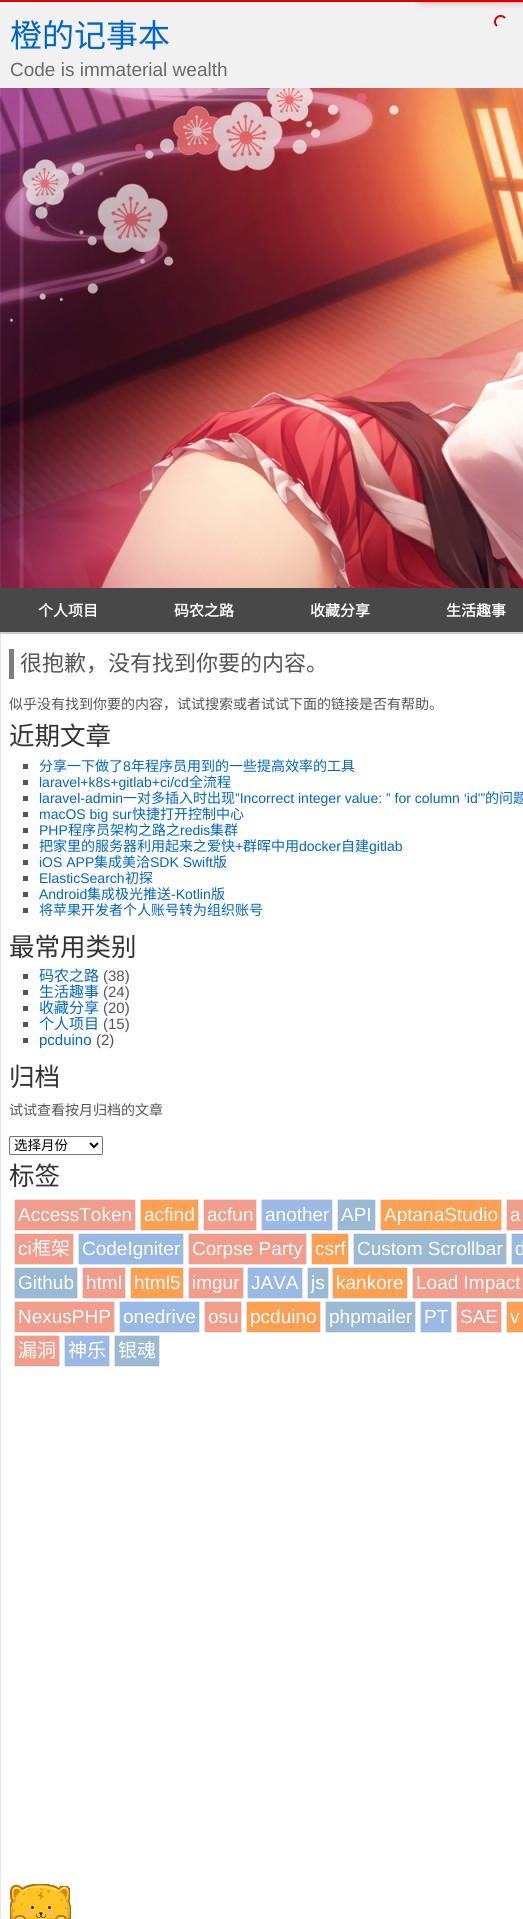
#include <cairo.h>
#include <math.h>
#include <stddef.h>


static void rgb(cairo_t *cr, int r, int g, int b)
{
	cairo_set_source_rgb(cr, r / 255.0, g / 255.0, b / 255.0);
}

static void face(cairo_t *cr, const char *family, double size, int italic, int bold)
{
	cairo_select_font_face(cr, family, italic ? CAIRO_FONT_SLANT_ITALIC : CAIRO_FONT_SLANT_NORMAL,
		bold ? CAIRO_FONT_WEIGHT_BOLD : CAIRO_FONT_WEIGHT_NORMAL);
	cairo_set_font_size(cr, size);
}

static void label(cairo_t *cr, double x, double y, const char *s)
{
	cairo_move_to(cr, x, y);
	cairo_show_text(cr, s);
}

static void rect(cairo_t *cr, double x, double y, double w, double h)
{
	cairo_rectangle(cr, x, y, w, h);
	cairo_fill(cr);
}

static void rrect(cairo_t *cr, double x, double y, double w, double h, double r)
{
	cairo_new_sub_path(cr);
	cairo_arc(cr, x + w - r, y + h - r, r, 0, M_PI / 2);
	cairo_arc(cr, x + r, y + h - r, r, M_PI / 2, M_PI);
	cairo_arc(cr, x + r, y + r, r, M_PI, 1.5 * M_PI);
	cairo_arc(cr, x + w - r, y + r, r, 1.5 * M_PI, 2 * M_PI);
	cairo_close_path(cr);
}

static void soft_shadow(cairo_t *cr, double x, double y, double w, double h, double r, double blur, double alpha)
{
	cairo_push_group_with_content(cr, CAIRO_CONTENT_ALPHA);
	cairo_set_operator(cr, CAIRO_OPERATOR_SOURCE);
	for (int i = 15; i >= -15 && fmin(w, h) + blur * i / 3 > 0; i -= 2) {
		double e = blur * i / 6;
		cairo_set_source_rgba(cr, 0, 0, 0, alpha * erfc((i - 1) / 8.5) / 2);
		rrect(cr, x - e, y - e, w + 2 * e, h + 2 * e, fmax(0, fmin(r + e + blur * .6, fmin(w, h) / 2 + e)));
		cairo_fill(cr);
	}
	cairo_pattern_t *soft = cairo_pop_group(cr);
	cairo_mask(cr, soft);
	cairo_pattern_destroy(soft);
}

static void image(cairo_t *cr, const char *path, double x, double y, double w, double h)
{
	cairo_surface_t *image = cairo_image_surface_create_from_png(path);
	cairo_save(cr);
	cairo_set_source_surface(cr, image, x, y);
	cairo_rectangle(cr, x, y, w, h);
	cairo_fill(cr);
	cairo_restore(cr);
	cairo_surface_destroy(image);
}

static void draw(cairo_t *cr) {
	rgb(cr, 241, 241, 241);
	cairo_paint(cr);
	rgb(cr, 225, 0, 0);
	rect(cr, 0, 0, 523, 2);
	rgb(cr, 225, 0, 0);
	soft_shadow(cr, 423, -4, 100, 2, 0, 5, 1);
	cairo_new_path(cr);
	cairo_move_to(cr, 497, 26);
	cairo_curve_to(cr, 491, 20.5, 499.5, 12, 505, 18);
	rgb(cr, 225, 0, 0);
	cairo_stroke(cr);
	face(cr, "Noto Sans CJK SC", 32, 0, 0);
	rgb(cr, 0, 102, 204);
	label(cr, 10, 47, "橙的记事本");
	face(cr, "Liberation Sans", 19, 0, 0);
	rgb(cr, 105, 105, 105);
	label(cr, 10, 76, "Code is immaterial wealth");
	image(cr, "image0.png", 0, 88, 523, 500);
	rgb(cr, 72, 72, 72);
	rect(cr, 0, 588, 523, 44);
	rgb(cr, 204, 204, 204);
	rect(cr, 0, 632, 523, 1);
	rect(cr, 0, 633, 523, 1);
	face(cr, "Noto Sans CJK SC", 15, 0, 1);
	rgb(cr, 255, 255, 255);
	label(cr, 38, 616, "个人项目");
	label(cr, 174, 616, "码农之路");
	label(cr, 310, 616, "收藏分享");
	label(cr, 446, 616, "生活趣事");
	rect(cr, 1, 634, 522, 1285);
	rgb(cr, 232, 232, 232);
	rect(cr, 0, 634, 1, 1285);
	rgb(cr, 125, 125, 136);
	rect(cr, 9, 649, 5, 30);
	face(cr, "Noto Sans CJK SC", 22, 0, 0);
	rgb(cr, 85, 85, 85);
	label(cr, 20, 671, "很抱歉，没有找到你要的内容。");
	face(cr, "Noto Sans CJK SC", 14, 0, 0);
	label(cr, 9, 709, "似乎没有找到你要的内容，试试搜索或者试试下面的链接是否有帮助。");
	face(cr, "Noto Sans CJK SC", 25.5, 0, 0);
	rgb(cr, 51, 51, 51);
	label(cr, 9, 745, "近期文章");
	rgb(cr, 85, 85, 85);
	rect(cr, 23, 764, 5, 5);
	face(cr, "Noto Sans CJK SC", 14, 0, 0);
	rgb(cr, 0, 102, 204);
	label(cr, 39, 771, "分享一下做了");
	face(cr, "Liberation Sans", 14, 0, 0);
	label(cr, 123, 771, "8");
	face(cr, "Noto Sans CJK SC", 14, 0, 0);
	label(cr, 131, 771, "年程序员用到的一些提高效率的工具");
	rgb(cr, 85, 85, 85);
	rect(cr, 23, 780, 5, 5);
	face(cr, "Liberation Sans", 14, 0, 0);
	rgb(cr, 0, 102, 204);
	label(cr, 39, 787, "laravel+k8s+gitlab+ci/cd");
	face(cr, "Noto Sans CJK SC", 14, 0, 0);
	label(cr, 189, 787, "全流程");
	rgb(cr, 85, 85, 85);
	rect(cr, 23, 796, 5, 5);
	face(cr, "Liberation Sans", 14, 0, 0);
	rgb(cr, 0, 102, 204);
	label(cr, 39, 803, "laravel-admin");
	face(cr, "Noto Sans CJK SC", 14, 0, 0);
	label(cr, 123, 803, "一对多插入时出现");
	face(cr, "Liberation Sans", 14, 0, 0);
	label(cr, 235, 803, "”Incorrect integer value: ” for column ‘id'”");
	face(cr, "Noto Sans CJK SC", 14, 0, 0);
	label(cr, 485, 803, "的问题");
	rgb(cr, 85, 85, 85);
	rect(cr, 23, 812, 5, 5);
	face(cr, "Liberation Sans", 14, 0, 0);
	rgb(cr, 0, 102, 204);
	label(cr, 39, 819, "macOS big sur");
	face(cr, "Noto Sans CJK SC", 14, 0, 0);
	label(cr, 132, 819, "快捷打开控制中心");
	rgb(cr, 85, 85, 85);
	rect(cr, 23, 828, 5, 5);
	face(cr, "Liberation Sans", 14, 0, 0);
	rgb(cr, 0, 102, 204);
	label(cr, 39, 835, "PHP");
	face(cr, "Noto Sans CJK SC", 14, 0, 0);
	label(cr, 68, 835, "程序员架构之路之");
	face(cr, "Liberation Sans", 14, 0, 0);
	label(cr, 180, 835, "redis");
	face(cr, "Noto Sans CJK SC", 14, 0, 0);
	label(cr, 210, 835, "集群");
	rgb(cr, 85, 85, 85);
	rect(cr, 23, 844, 5, 5);
	rgb(cr, 0, 102, 204);
	label(cr, 39, 851, "把家里的服务器利用起来之爱快");
	face(cr, "Liberation Sans", 14, 0, 0);
	label(cr, 235, 851, "+");
	face(cr, "Noto Sans CJK SC", 14, 0, 0);
	label(cr, 243, 851, "群晖中用");
	face(cr, "Liberation Sans", 14, 0, 0);
	label(cr, 299, 851, "docker");
	face(cr, "Noto Sans CJK SC", 14, 0, 0);
	label(cr, 341, 851, "自建");
	face(cr, "Liberation Sans", 14, 0, 0);
	label(cr, 369, 851, "gitlab");
	rgb(cr, 85, 85, 85);
	rect(cr, 23, 860, 5, 5);
	rgb(cr, 0, 102, 204);
	label(cr, 39, 867, "iOS APP");
	face(cr, "Noto Sans CJK SC", 14, 0, 0);
	label(cr, 94, 867, "集成美洽");
	face(cr, "Liberation Sans", 14, 0, 0);
	label(cr, 150, 867, "SDK Swift");
	face(cr, "Noto Sans CJK SC", 14, 0, 0);
	label(cr, 213, 867, "版");
	rgb(cr, 85, 85, 85);
	rect(cr, 23, 876, 5, 5);
	face(cr, "Liberation Sans", 14, 0, 0);
	rgb(cr, 0, 102, 204);
	label(cr, 39, 883, "ElasticSearch");
	face(cr, "Noto Sans CJK SC", 14, 0, 0);
	label(cr, 125, 883, "初探");
	rgb(cr, 85, 85, 85);
	rect(cr, 23, 892, 5, 5);
	face(cr, "Liberation Sans", 14, 0, 0);
	rgb(cr, 0, 102, 204);
	label(cr, 39, 899, "Android");
	face(cr, "Noto Sans CJK SC", 14, 0, 0);
	label(cr, 87, 899, "集成极光推送");
	face(cr, "Liberation Sans", 14, 0, 0);
	label(cr, 171, 899, "-Kotlin");
	face(cr, "Noto Sans CJK SC", 14, 0, 0);
	label(cr, 211, 899, "版");
	rgb(cr, 85, 85, 85);
	rect(cr, 23, 908, 5, 5);
	rgb(cr, 0, 102, 204);
	label(cr, 39, 915, "将苹果开发者个人账号转为组织账号");
	face(cr, "Noto Sans CJK SC", 25.5, 0, 0);
	rgb(cr, 51, 51, 51);
	label(cr, 9, 956, "最常用类别");
	rgb(cr, 85, 85, 85);
	rect(cr, 23, 974, 5, 5);
	face(cr, "Noto Sans CJK SC", 15, 0, 0);
	rgb(cr, 0, 102, 204);
	label(cr, 39, 981, "码农之路");
	face(cr, "Liberation Sans", 15, 0, 0);
	rgb(cr, 85, 85, 85);
	label(cr, 103, 981, "(38)");
	rect(cr, 23, 990, 5, 5);
	face(cr, "Noto Sans CJK SC", 15, 0, 0);
	rgb(cr, 0, 102, 204);
	label(cr, 39, 997, "生活趣事");
	face(cr, "Liberation Sans", 15, 0, 0);
	rgb(cr, 85, 85, 85);
	label(cr, 103, 997, "(24)");
	rect(cr, 23, 1006, 5, 5);
	face(cr, "Noto Sans CJK SC", 15, 0, 0);
	rgb(cr, 0, 102, 204);
	label(cr, 39, 1013, "收藏分享");
	face(cr, "Liberation Sans", 15, 0, 0);
	rgb(cr, 85, 85, 85);
	label(cr, 103, 1013, "(20)");
	rect(cr, 23, 1022, 5, 5);
	face(cr, "Noto Sans CJK SC", 15, 0, 0);
	rgb(cr, 0, 102, 204);
	label(cr, 39, 1029, "个人项目");
	face(cr, "Liberation Sans", 15, 0, 0);
	rgb(cr, 85, 85, 85);
	label(cr, 103, 1029, "(15)");
	rect(cr, 23, 1038, 5, 5);
	rgb(cr, 0, 102, 204);
	label(cr, 39, 1045, "pcduino");
	rgb(cr, 85, 85, 85);
	label(cr, 96, 1045, "(2)");
	face(cr, "Noto Sans CJK SC", 25.5, 0, 0);
	rgb(cr, 51, 51, 51);
	label(cr, 9, 1086, "归档");
	face(cr, "Noto Sans CJK SC", 14, 0, 0);
	rgb(cr, 85, 85, 85);
	label(cr, 9, 1115, "试试查看按月归档的文章");
	rrect(cr, 9.5, 1136.5, 93, 18, 1.5);
	rgb(cr, 118, 118, 118);
	cairo_set_line_width(cr, 1);
	cairo_stroke(cr);
	cairo_new_path(cr);
	cairo_move_to(cr, 90, 1143);
	cairo_line_to(cr, 94, 1147);
	cairo_line_to(cr, 98, 1143);
	rgb(cr, 0, 0, 0);
	cairo_set_line_width(cr, 2);
	cairo_stroke(cr);
	face(cr, "Noto Sans CJK SC", 13.5, 0, 0);
	label(cr, 14, 1150, "选择月份");
	face(cr, "Noto Sans CJK SC", 25.5, 0, 0);
	rgb(cr, 51, 51, 51);
	label(cr, 9, 1185, "标签");
	rgb(cr, 153, 153, 153);
	soft_shadow(cr, 15, 1200, 120, 30, 0, 0.5, 1);
	rgb(cr, 242, 156, 139);
	rect(cr, 15, 1200, 120, 30);
	face(cr, "Liberation Sans", 19, 0, 0);
	rgb(cr, 255, 255, 255);
	label(cr, 18, 1221, "AccessToken");
	rgb(cr, 153, 153, 153);
	soft_shadow(cr, 141, 1200, 57, 30, 0, 0.5, 1);
	rgb(cr, 255, 159, 81);
	rect(cr, 141, 1200, 57, 30);
	rgb(cr, 255, 255, 255);
	label(cr, 144, 1221, "acfind");
	rgb(cr, 153, 153, 153);
	soft_shadow(cr, 204, 1200, 52, 30, 0, 0.5, 1);
	rgb(cr, 242, 156, 139);
	rect(cr, 204, 1200, 52, 30);
	rgb(cr, 255, 255, 255);
	label(cr, 207, 1221, "acfun");
	rgb(cr, 153, 153, 153);
	soft_shadow(cr, 262, 1200, 70, 30, 0, 0.5, 1);
	rgb(cr, 154, 185, 228);
	rect(cr, 262, 1200, 70, 30);
	rgb(cr, 255, 255, 255);
	label(cr, 265, 1221, "another");
	rgb(cr, 153, 153, 153);
	soft_shadow(cr, 338, 1200, 37, 30, 0, 0.5, 1);
	rgb(cr, 154, 185, 212);
	rect(cr, 338, 1200, 37, 30);
	rgb(cr, 255, 255, 255);
	label(cr, 341, 1221, "API");
	rgb(cr, 153, 153, 153);
	soft_shadow(cr, 381, 1200, 120, 30, 0, 0.5, 1);
	rgb(cr, 255, 159, 81);
	rect(cr, 381, 1200, 120, 30);
	rgb(cr, 255, 255, 255);
	label(cr, 384, 1221, "AptanaStudio");
	rgb(cr, 153, 153, 153);
	soft_shadow(cr, 507, 1200, 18, 30, 0, 0.5, 1);
	rgb(cr, 242, 156, 139);
	rect(cr, 507, 1200, 16, 30);
	rgb(cr, 255, 255, 255);
	label(cr, 510, 1221, "a");
	rgb(cr, 153, 153, 153);
	soft_shadow(cr, 15, 1234, 58, 30, 0, 0.5, 1);
	rgb(cr, 242, 156, 139);
	rect(cr, 15, 1234, 58, 30);
	rgb(cr, 255, 255, 255);
	label(cr, 18, 1255, "ci");
	face(cr, "Noto Sans CJK SC", 19, 0, 0);
	label(cr, 32, 1255, "框架");
	rgb(cr, 153, 153, 153);
	soft_shadow(cr, 79, 1234, 104, 30, 0, 0.5, 1);
	rgb(cr, 154, 185, 228);
	rect(cr, 79, 1234, 104, 30);
	face(cr, "Liberation Sans", 19, 0, 0);
	rgb(cr, 255, 255, 255);
	label(cr, 82, 1255, "CodeIgniter");
	rgb(cr, 153, 153, 153);
	soft_shadow(cr, 189, 1234, 117, 30, 0, 0.5, 1);
	rgb(cr, 242, 156, 139);
	rect(cr, 189, 1234, 117, 30);
	rgb(cr, 255, 255, 255);
	label(cr, 192, 1255, "Corpse Party");
	rgb(cr, 153, 153, 153);
	soft_shadow(cr, 312, 1234, 36, 30, 0, 0.5, 1);
	rgb(cr, 255, 159, 81);
	rect(cr, 312, 1234, 36, 30);
	rgb(cr, 255, 255, 255);
	label(cr, 315, 1255, "csrf");
	rgb(cr, 153, 153, 153);
	soft_shadow(cr, 354, 1234, 152, 30, 0, 0.5, 1);
	rgb(cr, 154, 185, 212);
	rect(cr, 354, 1234, 152, 30);
	rgb(cr, 255, 255, 255);
	label(cr, 357, 1255, "Custom Scrollbar");
	rgb(cr, 153, 153, 153);
	soft_shadow(cr, 512, 1234, 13, 30, 0, 0.5, 1);
	rgb(cr, 154, 185, 228);
	rect(cr, 512, 1234, 11, 30);
	rgb(cr, 255, 255, 255);
	label(cr, 515, 1255, "d");
	rgb(cr, 153, 153, 153);
	soft_shadow(cr, 15, 1268, 62, 30, 0, 0.5, 1);
	rgb(cr, 154, 185, 212);
	rect(cr, 15, 1268, 62, 30);
	rgb(cr, 255, 255, 255);
	label(cr, 18, 1289, "Github");
	rgb(cr, 153, 153, 153);
	soft_shadow(cr, 83, 1268, 42, 30, 0, 0.5, 1);
	rgb(cr, 242, 156, 139);
	rect(cr, 83, 1268, 42, 30);
	rgb(cr, 255, 255, 255);
	label(cr, 86, 1289, "html");
	rgb(cr, 153, 153, 153);
	soft_shadow(cr, 131, 1268, 52, 30, 0, 0.5, 1);
	rgb(cr, 255, 159, 81);
	rect(cr, 131, 1268, 52, 30);
	rgb(cr, 255, 255, 255);
	label(cr, 134, 1289, "html5");
	rgb(cr, 153, 153, 153);
	soft_shadow(cr, 189, 1268, 54, 30, 0, 0.5, 1);
	rgb(cr, 242, 156, 139);
	rect(cr, 189, 1268, 54, 30);
	rgb(cr, 255, 255, 255);
	label(cr, 192, 1289, "imgur");
	rgb(cr, 153, 153, 153);
	soft_shadow(cr, 248, 1268, 54, 30, 0, 0.5, 1);
	rgb(cr, 154, 185, 228);
	rect(cr, 248, 1268, 54, 30);
	rgb(cr, 255, 255, 255);
	label(cr, 251, 1289, "JAVA");
	rgb(cr, 153, 153, 153);
	soft_shadow(cr, 308, 1268, 20, 30, 0, 0.5, 1);
	rgb(cr, 154, 185, 212);
	rect(cr, 308, 1268, 20, 30);
	rgb(cr, 255, 255, 255);
	label(cr, 311, 1289, "js");
	rgb(cr, 153, 153, 153);
	soft_shadow(cr, 333, 1268, 74, 30, 0, 0.5, 1);
	rgb(cr, 255, 159, 81);
	rect(cr, 333, 1268, 74, 30);
	rgb(cr, 255, 255, 255);
	label(cr, 336, 1289, "kankore");
	rgb(cr, 153, 153, 153);
	soft_shadow(cr, 413, 1268, 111, 30, 0, 0.5, 1);
	rgb(cr, 242, 156, 139);
	rect(cr, 413, 1268, 110, 30);
	rgb(cr, 255, 255, 255);
	label(cr, 416, 1289, "Load Impact");
	rgb(cr, 153, 153, 153);
	soft_shadow(cr, 15, 1302, 99, 30, 0, 0.5, 1);
	rgb(cr, 242, 156, 139);
	rect(cr, 15, 1302, 99, 30);
	rgb(cr, 255, 255, 255);
	label(cr, 18, 1323, "NexusPHP");
	rgb(cr, 153, 153, 153);
	soft_shadow(cr, 120, 1302, 79, 30, 0, 0.5, 1);
	rgb(cr, 154, 185, 228);
	rect(cr, 120, 1302, 79, 30);
	rgb(cr, 255, 255, 255);
	label(cr, 123, 1323, "onedrive");
	rgb(cr, 153, 153, 153);
	soft_shadow(cr, 205, 1302, 36, 30, 0, 0.5, 1);
	rgb(cr, 242, 156, 139);
	rect(cr, 205, 1302, 36, 30);
	rgb(cr, 255, 255, 255);
	label(cr, 208, 1323, "osu");
	rgb(cr, 153, 153, 153);
	soft_shadow(cr, 247, 1302, 73, 30, 0, 0.5, 1);
	rgb(cr, 255, 159, 81);
	rect(cr, 247, 1302, 73, 30);
	rgb(cr, 255, 255, 255);
	label(cr, 250, 1323, "pcduino");
	rgb(cr, 153, 153, 153);
	soft_shadow(cr, 326, 1302, 89, 30, 0, 0.5, 1);
	rgb(cr, 154, 185, 212);
	rect(cr, 326, 1302, 89, 30);
	rgb(cr, 255, 255, 255);
	label(cr, 329, 1323, "phpmailer");
	rgb(cr, 153, 153, 153);
	soft_shadow(cr, 421, 1302, 30, 30, 0, 0.5, 1);
	rgb(cr, 154, 185, 228);
	rect(cr, 421, 1302, 30, 30);
	rgb(cr, 255, 255, 255);
	label(cr, 424, 1323, "PT");
	rgb(cr, 153, 153, 153);
	soft_shadow(cr, 457, 1302, 44, 30, 0, 0.5, 1);
	rgb(cr, 242, 156, 139);
	rect(cr, 457, 1302, 44, 30);
	rgb(cr, 255, 255, 255);
	label(cr, 460, 1323, "SAE");
	rgb(cr, 153, 153, 153);
	soft_shadow(cr, 507, 1302, 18, 30, 0, 0.5, 1);
	rgb(cr, 255, 159, 81);
	rect(cr, 507, 1302, 16, 30);
	rgb(cr, 255, 255, 255);
	label(cr, 510, 1323, "v");
	rgb(cr, 153, 153, 153);
	soft_shadow(cr, 15, 1336, 44, 30, 0, 0.5, 1);
	rgb(cr, 242, 156, 139);
	rect(cr, 15, 1336, 44, 30);
	face(cr, "Noto Sans CJK SC", 19, 0, 0);
	rgb(cr, 255, 255, 255);
	label(cr, 18, 1357, "漏洞");
	rgb(cr, 153, 153, 153);
	soft_shadow(cr, 65, 1336, 44, 30, 0, 0.5, 1);
	rgb(cr, 154, 185, 228);
	rect(cr, 65, 1336, 44, 30);
	rgb(cr, 255, 255, 255);
	label(cr, 68, 1357, "神乐");
	rgb(cr, 153, 153, 153);
	soft_shadow(cr, 115, 1336, 44, 30, 0, 0.5, 1);
	rgb(cr, 154, 185, 212);
	rect(cr, 115, 1336, 44, 30);
	rgb(cr, 255, 255, 255);
	label(cr, 118, 1357, "银魂");
	image(cr, "image1.png", 10, 1884, 61, 35);
}

int main(void) {
	cairo_surface_t *surface = cairo_image_surface_create(CAIRO_FORMAT_RGB24, 523, 1919);
	cairo_t *cr = cairo_create(surface);
	cairo_font_options_t *options = cairo_font_options_create();
	cairo_font_options_set_hint_metrics(options, CAIRO_HINT_METRICS_OFF);
	cairo_font_options_set_hint_style(options, CAIRO_HINT_STYLE_NONE);
	cairo_set_font_options(cr, options);
	cairo_set_miter_limit(cr, 4);
	draw(cr);
	cairo_surface_write_to_png(surface, "render.png");
	cairo_font_options_destroy(options);
	cairo_destroy(cr);
	cairo_surface_destroy(surface);
	return 0;
}
